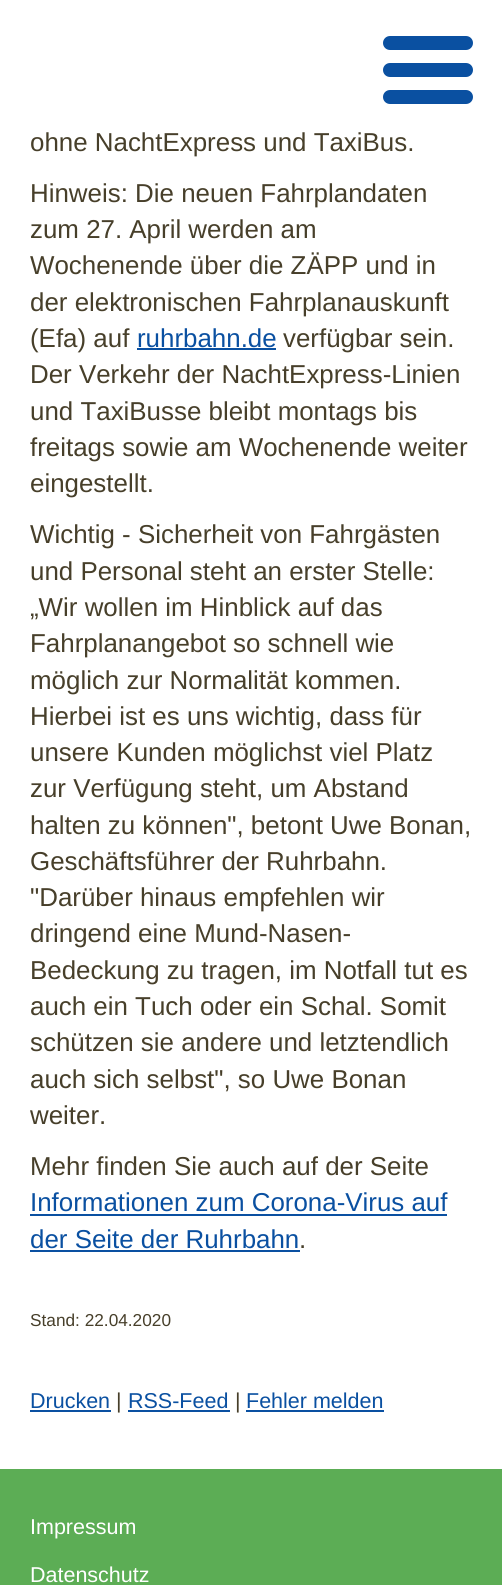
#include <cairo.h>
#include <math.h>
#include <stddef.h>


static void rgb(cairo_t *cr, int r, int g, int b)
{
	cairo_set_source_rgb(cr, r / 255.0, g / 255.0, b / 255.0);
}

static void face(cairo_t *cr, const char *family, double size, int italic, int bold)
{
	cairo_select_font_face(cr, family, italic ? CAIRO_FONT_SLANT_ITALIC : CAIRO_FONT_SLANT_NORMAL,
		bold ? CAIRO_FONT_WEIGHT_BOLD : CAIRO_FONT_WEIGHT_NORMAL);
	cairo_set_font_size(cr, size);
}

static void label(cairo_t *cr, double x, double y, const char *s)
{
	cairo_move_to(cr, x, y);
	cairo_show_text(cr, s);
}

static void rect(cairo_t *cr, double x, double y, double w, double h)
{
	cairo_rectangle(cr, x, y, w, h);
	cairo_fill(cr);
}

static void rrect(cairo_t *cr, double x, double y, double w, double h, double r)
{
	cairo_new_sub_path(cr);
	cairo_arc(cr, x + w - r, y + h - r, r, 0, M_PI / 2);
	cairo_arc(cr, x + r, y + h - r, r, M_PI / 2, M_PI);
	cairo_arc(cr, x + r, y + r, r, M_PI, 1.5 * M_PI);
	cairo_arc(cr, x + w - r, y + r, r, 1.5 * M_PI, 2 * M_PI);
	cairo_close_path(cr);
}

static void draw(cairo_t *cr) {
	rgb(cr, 255, 255, 255);
	cairo_paint(cr);
	rgb(cr, 10, 80, 161);
	rrect(cr, 383, 36, 90, 14, 7);
	cairo_fill(cr);
	rrect(cr, 383, 63, 90, 14, 7);
	cairo_fill(cr);
	rrect(cr, 383, 90, 90, 14, 7);
	cairo_fill(cr);
	face(cr, "Liberation Sans", 25.9, 0, 0);
	rgb(cr, 71, 63, 42);
	label(cr, 30, 151, "ohne NachtExpress und TaxiBus.");
	label(cr, 30, 202, "Hinweis: Die neuen Fahrplandaten");
	label(cr, 30, 238, "zum 27. April werden am");
	label(cr, 30, 274, "Wochenende über die ZÄPP und in");
	label(cr, 30, 311, "der elektronischen Fahrplanauskunft");
	label(cr, 30, 347, "(Efa) auf");
	rgb(cr, 10, 80, 161);
	label(cr, 137, 347, "ruhrbahn.de");
	rect(cr, 137, 348, 139, 2);
	rgb(cr, 71, 63, 42);
	label(cr, 283, 347, "verfügbar sein.");
	label(cr, 30, 383, "Der Verkehr der NachtExpress-Linien");
	label(cr, 30, 420, "und TaxiBusse bleibt montags bis");
	label(cr, 30, 456, "freitags sowie am Wochenende weiter");
	label(cr, 30, 492, "eingestellt.");
	label(cr, 30, 543, "Wichtig - Sicherheit von Fahrgästen");
	label(cr, 30, 580, "und Personal steht an erster Stelle:");
	label(cr, 30, 616, "„Wir wollen im Hinblick auf das");
	label(cr, 30, 652, "Fahrplanangebot so schnell wie");
	label(cr, 30, 689, "möglich zur Normalität kommen.");
	label(cr, 30, 725, "Hierbei ist es uns wichtig, dass für");
	label(cr, 30, 761, "unsere Kunden möglichst viel Platz");
	label(cr, 30, 797, "zur Verfügung steht, um Abstand");
	label(cr, 30, 834, "halten zu können\", betont Uwe Bonan,");
	label(cr, 30, 870, "Geschäftsführer der Ruhrbahn.");
	label(cr, 30, 906, "\"Darüber hinaus empfehlen wir");
	label(cr, 30, 942, "dringend eine Mund-Nasen-");
	label(cr, 30, 979, "Bedeckung zu tragen, im Notfall tut es");
	label(cr, 30, 1015, "auch ein Tuch oder ein Schal. Somit");
	label(cr, 30, 1051, "schützen sie andere und letztendlich");
	label(cr, 30, 1088, "auch sich selbst\", so Uwe Bonan");
	label(cr, 30, 1124, "weiter.");
	label(cr, 30, 1175, "Mehr finden Sie auch auf der Seite");
	rgb(cr, 10, 80, 161);
	label(cr, 30, 1211, "Informationen zum Corona-Virus auf");
	rect(cr, 30, 1214, 417, 2);
	label(cr, 30, 1248, "der Seite der Ruhrbahn");
	rect(cr, 30, 1250, 270, 2);
	rgb(cr, 71, 63, 42);
	label(cr, 299, 1248, ".");
	face(cr, "Liberation Sans", 17.25, 0, 0);
	label(cr, 30, 1326, "Stand: 22.04.2020");
	face(cr, "Liberation Sans", 21.5, 0, 0);
	rgb(cr, 10, 80, 161);
	label(cr, 30, 1408, "Drucken");
	rect(cr, 30, 1410, 81, 2);
	rgb(cr, 71, 63, 42);
	label(cr, 116, 1408, "|");
	rgb(cr, 10, 80, 161);
	label(cr, 128, 1408, "RSS-Feed");
	rect(cr, 128, 1410, 102, 2);
	rgb(cr, 71, 63, 42);
	label(cr, 235, 1408, "|");
	rgb(cr, 10, 80, 161);
	label(cr, 246, 1408, "Fehler melden");
	rect(cr, 246, 1410, 138, 2);
	rgb(cr, 92, 173, 85);
	rect(cr, 0, 1469, 502, 116);
	rgb(cr, 255, 255, 255);
	label(cr, 30, 1534, "Impressum");
	label(cr, 30, 1582, "Datenschutz");
}

int main(void) {
	cairo_surface_t *surface = cairo_image_surface_create(CAIRO_FORMAT_RGB24, 502, 1585);
	cairo_t *cr = cairo_create(surface);
	cairo_font_options_t *options = cairo_font_options_create();
	cairo_font_options_set_hint_metrics(options, CAIRO_HINT_METRICS_OFF);
	cairo_font_options_set_hint_style(options, CAIRO_HINT_STYLE_NONE);
	cairo_set_font_options(cr, options);
	cairo_set_miter_limit(cr, 4);
	draw(cr);
	cairo_surface_write_to_png(surface, "render.png");
	cairo_font_options_destroy(options);
	cairo_destroy(cr);
	cairo_surface_destroy(surface);
	return 0;
}
